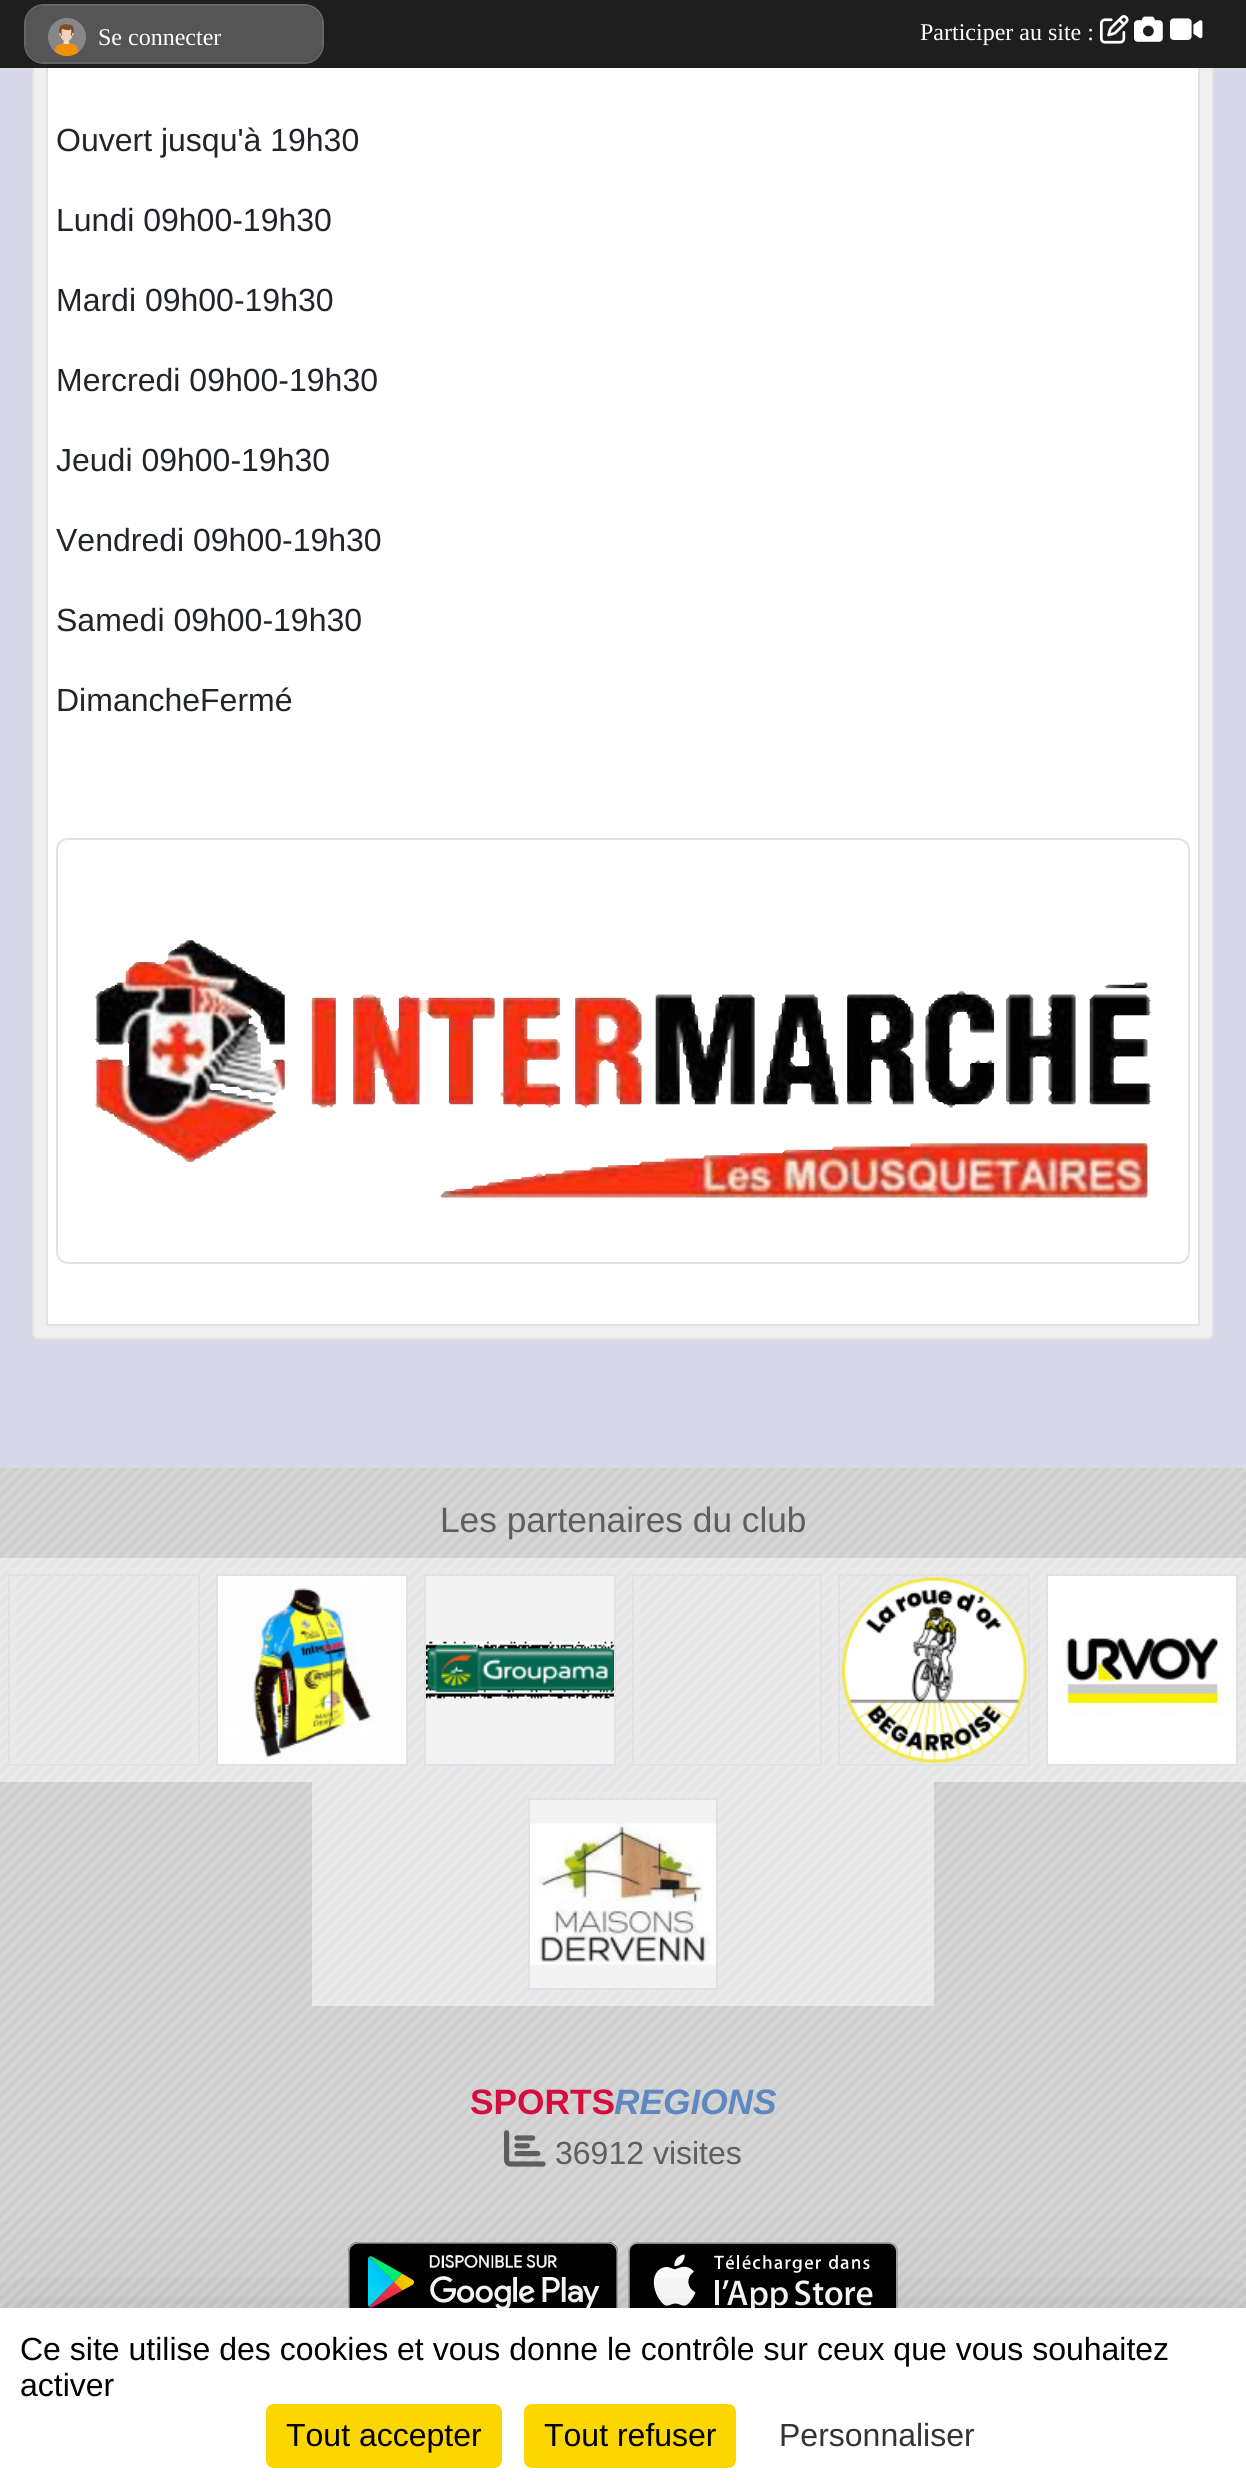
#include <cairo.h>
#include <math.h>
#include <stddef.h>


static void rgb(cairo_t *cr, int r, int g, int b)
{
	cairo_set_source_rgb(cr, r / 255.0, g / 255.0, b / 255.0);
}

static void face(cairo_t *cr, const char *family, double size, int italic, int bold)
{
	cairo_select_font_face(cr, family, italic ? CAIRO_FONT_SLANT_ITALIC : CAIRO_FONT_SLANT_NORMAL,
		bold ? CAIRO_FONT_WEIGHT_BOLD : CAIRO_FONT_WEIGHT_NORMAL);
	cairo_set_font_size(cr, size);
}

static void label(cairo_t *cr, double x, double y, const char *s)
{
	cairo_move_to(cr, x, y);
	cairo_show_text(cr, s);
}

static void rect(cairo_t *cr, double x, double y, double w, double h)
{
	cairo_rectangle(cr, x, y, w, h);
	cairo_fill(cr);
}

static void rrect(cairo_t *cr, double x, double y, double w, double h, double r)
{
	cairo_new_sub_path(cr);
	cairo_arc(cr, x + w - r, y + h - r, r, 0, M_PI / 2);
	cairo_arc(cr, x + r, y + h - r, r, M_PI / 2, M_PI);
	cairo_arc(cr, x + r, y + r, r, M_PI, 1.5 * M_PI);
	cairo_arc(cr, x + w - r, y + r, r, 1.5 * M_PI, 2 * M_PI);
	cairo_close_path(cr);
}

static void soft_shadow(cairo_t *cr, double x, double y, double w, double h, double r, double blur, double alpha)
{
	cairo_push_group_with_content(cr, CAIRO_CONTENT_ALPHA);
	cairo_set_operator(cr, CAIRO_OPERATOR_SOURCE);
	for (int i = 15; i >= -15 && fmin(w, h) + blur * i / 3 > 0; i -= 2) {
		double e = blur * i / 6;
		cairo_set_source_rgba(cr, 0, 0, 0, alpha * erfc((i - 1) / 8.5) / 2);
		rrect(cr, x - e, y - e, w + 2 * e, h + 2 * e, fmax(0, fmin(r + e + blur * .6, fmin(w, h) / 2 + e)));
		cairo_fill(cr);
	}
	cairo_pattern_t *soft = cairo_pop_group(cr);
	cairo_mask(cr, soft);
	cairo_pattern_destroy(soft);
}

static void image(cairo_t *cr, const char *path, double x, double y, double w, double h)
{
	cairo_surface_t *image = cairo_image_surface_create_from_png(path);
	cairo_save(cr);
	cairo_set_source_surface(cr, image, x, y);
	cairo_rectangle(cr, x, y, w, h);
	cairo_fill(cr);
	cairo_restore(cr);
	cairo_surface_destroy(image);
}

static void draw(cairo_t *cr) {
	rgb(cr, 216, 216, 232);
	cairo_paint(cr);
	rgb(cr, 240, 240, 240);
	rrect(cr, 33, -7, 1180, 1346, 5);
	cairo_fill_preserve(cr);
	rgb(cr, 225, 225, 225);
	cairo_stroke(cr);
	rgb(cr, 255, 255, 255);
	rect(cr, 48, 68, 1150, 1256);
	cairo_rectangle(cr, 47, -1, 1152, 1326);
	rgb(cr, 225, 225, 225);
	cairo_stroke(cr);
	rgb(cr, 30, 30, 30);
	rect(cr, 0, 0, 1246, 68);
	rrect(cr, 25, 5, 298, 58, 19);
	rgb(cr, 102, 102, 102);
	cairo_stroke(cr);
	rgb(cr, 85, 85, 85);
	rrect(cr, 26, 6, 296, 56, 18);
	cairo_fill(cr);
	image(cr, "image0.png", 48, 18, 38, 38);
	face(cr, "Liberation Serif", 24, 0, 0);
	rgb(cr, 255, 255, 255);
	label(cr, 98, 45, "Se connecter");
	label(cr, 920, 40, "Participer au site :");
	image(cr, "image1.png", 1100, 15, 29, 29);
	image(cr, "image2.png", 1134, 16, 29, 26);
	image(cr, "image3.png", 1170, 18, 33, 22);
	face(cr, "Liberation Sans", 32, 0, 0);
	rgb(cr, 33, 37, 41);
	label(cr, 56, 151, "Ouvert jusqu'à 19h30");
	label(cr, 56, 231, "Lundi 09h00-19h30");
	label(cr, 56, 311, "Mardi 09h00-19h30");
	label(cr, 56, 391, "Mercredi 09h00-19h30");
	label(cr, 56, 471, "Jeudi 09h00-19h30");
	label(cr, 56, 551, "Vendredi 09h00-19h30");
	label(cr, 56, 631, "Samedi 09h00-19h30");
	label(cr, 56, 711, "DimancheFermé");
	rrect(cr, 57, 839, 1132, 424, 11);
	rgb(cr, 222, 226, 230);
	cairo_stroke(cr);
	image(cr, "image4.png", 95, 940, 1056, 258);
	image(cr, "image5.png", 0, 1468, 1246, 840);
	face(cr, "Liberation Sans", 35.25, 0, 0);
	rgb(cr, 94, 94, 94);
	label(cr, 440, 1532, "Les partenaires du club");
	cairo_set_source_rgba(cr, 1, 1, 1, 0.5);
	rect(cr, 0, 1558, 208, 224);
	cairo_rectangle(cr, 9, 1575, 190, 190);
	rgb(cr, 222, 226, 230);
	cairo_stroke(cr);
	cairo_set_source_rgba(cr, 1, 1, 1, 0.5);
	rect(cr, 208, 1558, 208, 224);
	cairo_rectangle(cr, 217, 1575, 190, 190);
	rgb(cr, 222, 226, 230);
	cairo_stroke(cr);
	image(cr, "image6.png", 218, 1576, 188, 188);
	cairo_set_source_rgba(cr, 1, 1, 1, 0.5);
	rect(cr, 416, 1558, 208, 224);
	cairo_rectangle(cr, 425, 1575, 190, 190);
	rgb(cr, 222, 226, 230);
	cairo_stroke(cr);
	image(cr, "image7.png", 426, 1576, 188, 188);
	cairo_set_source_rgba(cr, 1, 1, 1, 0.5);
	rect(cr, 624, 1558, 206, 224);
	cairo_rectangle(cr, 633, 1575, 188, 190);
	rgb(cr, 222, 226, 230);
	cairo_stroke(cr);
	cairo_set_source_rgba(cr, 1, 1, 1, 0.5);
	rect(cr, 830, 1558, 208, 224);
	cairo_rectangle(cr, 839, 1575, 190, 190);
	rgb(cr, 222, 226, 230);
	cairo_stroke(cr);
	image(cr, "image8.png", 841, 1576, 187, 188);
	cairo_set_source_rgba(cr, 1, 1, 1, 0.5);
	rect(cr, 1038, 1558, 208, 224);
	cairo_rectangle(cr, 1047, 1575, 190, 190);
	rgb(cr, 222, 226, 230);
	cairo_stroke(cr);
	image(cr, "image9.png", 1048, 1576, 188, 188);
	cairo_set_source_rgba(cr, 1, 1, 1, 0.5);
	rect(cr, 312, 1782, 208, 224);
	rect(cr, 520, 1782, 206, 224);
	cairo_rectangle(cr, 529, 1799, 188, 190);
	rgb(cr, 222, 226, 230);
	cairo_stroke(cr);
	image(cr, "image10.png", 530, 1800, 186, 188);
	cairo_set_source_rgba(cr, 1, 1, 1, 0.5);
	rect(cr, 726, 1782, 208, 224);
	face(cr, "Liberation Sans", 35.25, 0, 1);
	rgb(cr, 214, 12, 62);
	label(cr, 470, 2114, "SPORTS");
	face(cr, "Liberation Sans", 35.25, 1, 1);
	rgb(cr, 95, 136, 192);
	label(cr, 614, 2114, "REGIONS");
	image(cr, "image11.png", 504, 2130, 42, 37);
	face(cr, "Liberation Sans", 32, 0, 0);
	rgb(cr, 94, 94, 94);
	label(cr, 555, 2164, "36912 visites");
	image(cr, "image12.png", 348, 2242, 270, 66);
	image(cr, "image13.png", 628, 2242, 270, 66);
	rgb(cr, 0, 0, 0);
	soft_shadow(cr, 0, 2348, 1246, 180, 0, 60, 0.25);
	rgb(cr, 255, 255, 255);
	rect(cr, 0, 2308, 1246, 180);
	rgb(cr, 0, 0, 0);
	label(cr, 20, 2360, "Ce site utilise des cookies et vous donne le contrôle sur ceux que vous souhaitez");
	label(cr, 20, 2396, "activer");
	rgb(cr, 251, 214, 0);
	rrect(cr, 266, 2404, 236, 64, 8);
	cairo_fill(cr);
	rgb(cr, 0, 0, 0);
	label(cr, 286, 2446, "Tout accepter");
	rgb(cr, 251, 214, 0);
	rrect(cr, 524, 2404, 212, 64, 8);
	cairo_fill(cr);
	rgb(cr, 0, 0, 0);
	label(cr, 544, 2446, "Tout refuser");
	rgb(cr, 51, 51, 51);
	label(cr, 779, 2446, "Personnaliser");
}

int main(void) {
	cairo_surface_t *surface = cairo_image_surface_create(CAIRO_FORMAT_RGB24, 1246, 2488);
	cairo_t *cr = cairo_create(surface);
	cairo_font_options_t *options = cairo_font_options_create();
	cairo_font_options_set_hint_metrics(options, CAIRO_HINT_METRICS_OFF);
	cairo_font_options_set_hint_style(options, CAIRO_HINT_STYLE_NONE);
	cairo_set_font_options(cr, options);
	cairo_set_miter_limit(cr, 4);
	draw(cr);
	cairo_surface_write_to_png(surface, "render.png");
	cairo_font_options_destroy(options);
	cairo_destroy(cr);
	cairo_surface_destroy(surface);
	return 0;
}
